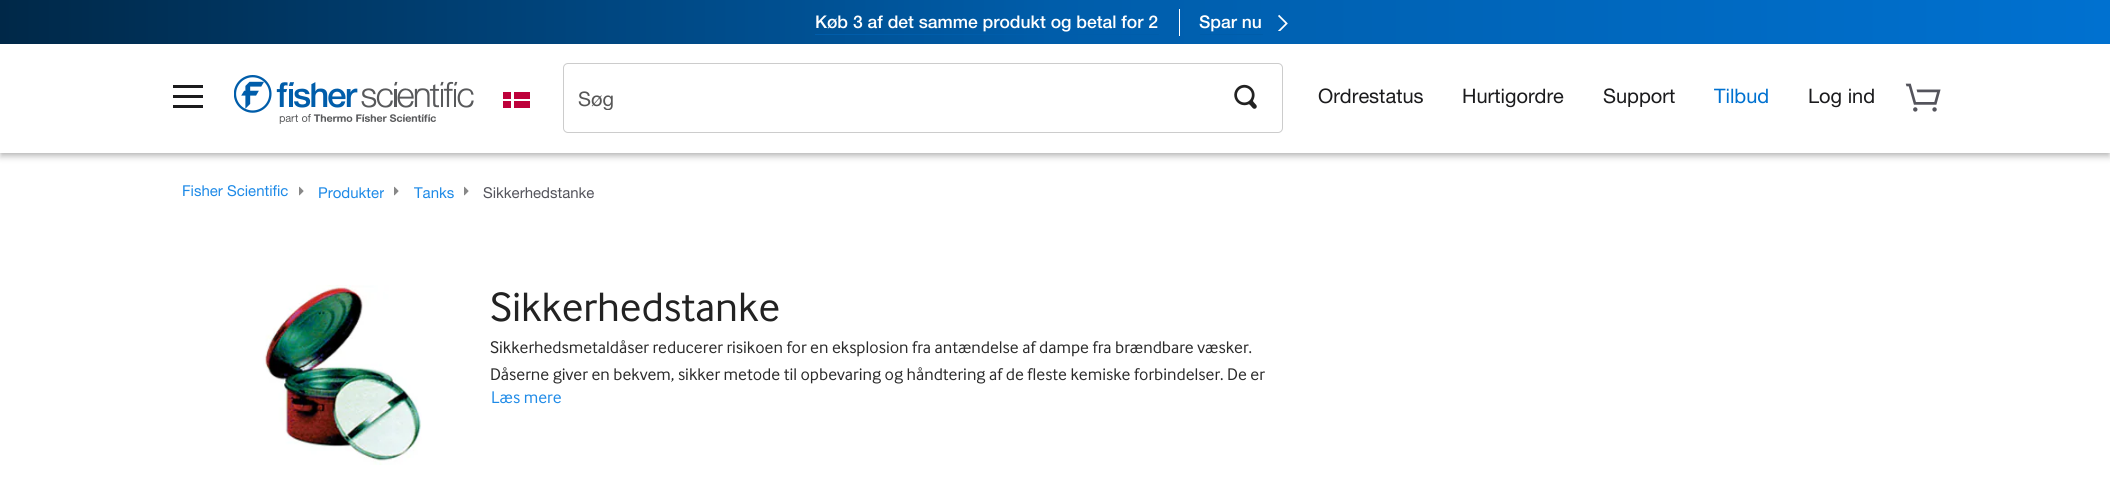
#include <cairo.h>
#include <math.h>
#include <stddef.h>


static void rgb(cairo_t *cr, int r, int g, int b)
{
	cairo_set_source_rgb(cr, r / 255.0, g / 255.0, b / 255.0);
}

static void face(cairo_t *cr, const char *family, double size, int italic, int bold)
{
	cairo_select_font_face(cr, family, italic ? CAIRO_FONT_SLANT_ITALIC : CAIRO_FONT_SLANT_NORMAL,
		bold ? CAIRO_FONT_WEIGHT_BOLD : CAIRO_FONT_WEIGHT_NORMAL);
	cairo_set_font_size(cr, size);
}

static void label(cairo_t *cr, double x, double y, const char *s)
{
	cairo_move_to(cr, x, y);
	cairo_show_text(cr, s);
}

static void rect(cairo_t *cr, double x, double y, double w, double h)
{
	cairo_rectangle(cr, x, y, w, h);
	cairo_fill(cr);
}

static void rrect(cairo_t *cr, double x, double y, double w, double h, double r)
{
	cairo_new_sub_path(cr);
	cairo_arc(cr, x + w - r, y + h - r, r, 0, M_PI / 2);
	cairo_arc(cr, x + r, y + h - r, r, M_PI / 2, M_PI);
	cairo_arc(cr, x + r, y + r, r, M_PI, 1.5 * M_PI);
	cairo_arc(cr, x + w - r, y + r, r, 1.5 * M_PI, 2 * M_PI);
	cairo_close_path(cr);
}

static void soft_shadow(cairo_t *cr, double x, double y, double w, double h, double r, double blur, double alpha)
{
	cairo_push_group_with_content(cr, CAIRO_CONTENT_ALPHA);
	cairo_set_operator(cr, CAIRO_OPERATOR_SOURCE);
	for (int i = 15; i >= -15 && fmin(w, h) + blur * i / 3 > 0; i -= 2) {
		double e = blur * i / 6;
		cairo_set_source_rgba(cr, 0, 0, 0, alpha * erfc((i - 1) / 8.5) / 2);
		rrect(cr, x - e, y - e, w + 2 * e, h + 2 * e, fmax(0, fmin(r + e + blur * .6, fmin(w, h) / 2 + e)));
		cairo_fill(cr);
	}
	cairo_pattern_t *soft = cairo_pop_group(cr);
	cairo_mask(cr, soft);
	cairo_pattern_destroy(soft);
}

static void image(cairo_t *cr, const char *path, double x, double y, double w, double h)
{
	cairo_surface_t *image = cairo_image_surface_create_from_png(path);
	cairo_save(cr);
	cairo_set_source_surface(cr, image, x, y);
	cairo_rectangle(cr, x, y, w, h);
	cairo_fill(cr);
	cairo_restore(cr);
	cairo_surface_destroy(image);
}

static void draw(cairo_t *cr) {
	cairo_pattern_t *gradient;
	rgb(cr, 255, 255, 255);
	cairo_paint(cr);
	gradient = cairo_pattern_create_linear(2110, 22, 0, 21);
	cairo_pattern_add_color_stop_rgba(gradient, 0, 0, 0.443, 0.816, 1);
	cairo_pattern_add_color_stop_rgba(gradient, 0.5, 0, 0.365, 0.667, 1);
	cairo_pattern_add_color_stop_rgba(gradient, 1, 0, 0.157, 0.282, 1);
	cairo_set_source(cr, gradient);
	cairo_pattern_destroy(gradient);
	rect(cr, 0, 0, 2110, 44);
	face(cr, "Helvetica Neue Medium", 17.5, 0, 0);
	rgb(cr, 255, 255, 255);
	label(cr, 815, 28, "Køb 3 af det samme produkt og betal for 2");
	rgb(cr, 0, 93, 170);
	rect(cr, 815, 34, 344, 1);
	rgb(cr, 255, 255, 255);
	rect(cr, 1179, 9, 1, 27);
	label(cr, 1199, 28, "Spar nu");
	rgb(cr, 0, 93, 170);
	rect(cr, 1200, 34, 63, 1);
	image(cr, "image0.png", 1278, 14, 10, 17);
	rgb(cr, 0, 0, 0);
	soft_shadow(cr, 0, 49, 2110, 109, 0, 3, 0.14);
	soft_shadow(cr, 1, 48, 2108, 106, 0, 2.5, 0.2);
	rgb(cr, 255, 255, 255);
	rect(cr, 0, 44, 2110, 109);
	rgb(cr, 27, 27, 29);
	rect(cr, 173, 95, 30, 3);
	rect(cr, 173, 85, 30, 3);
	rect(cr, 173, 105, 30, 3);
	image(cr, "image1.png", 234, 75, 240, 49);
	rgb(cr, 190, 0, 58);
	rect(cr, 503, 92, 27, 16);
	rgb(cr, 255, 255, 255);
	rect(cr, 511, 92, 3, 16);
	rect(cr, 503, 99, 27, 2);
	rrect(cr, 563.5, 63.5, 719, 69, 4.5);
	rgb(cr, 204, 204, 204);
	cairo_set_line_width(cr, 1);
	cairo_stroke(cr);
	cairo_save(cr);
	cairo_rectangle(cr, 578, 86, 621, 24);
	cairo_clip(cr);
	face(cr, "Helvetica Neue", 20, 0, 0);
	rgb(cr, 86, 86, 86);
	label(cr, 578, 106, "Søg");
	cairo_restore(cr);
	image(cr, "image2.png", 1234, 84, 23, 25);
	face(cr, "Helvetica Neue", 20, 0, 0);
	rgb(cr, 27, 27, 29);
	label(cr, 1318, 103, "Ordrestatus");
	label(cr, 1462, 103, "Hurtigordre");
	label(cr, 1603, 103, "Support");
	rgb(cr, 0, 113, 208);
	label(cr, 1714, 103, "Tilbud");
	rgb(cr, 27, 27, 29);
	label(cr, 1808, 103, "Log ind");
	image(cr, "image3.png", 1905, 83, 36, 29);
	face(cr, "Helvetica Neue", 15, 0, 0);
	rgb(cr, 30, 138, 231);
	label(cr, 182, 196, "Fisher Scientific");
	image(cr, "image4.png", 299, 186, 5, 10);
	label(cr, 318, 198, "Produkter");
	image(cr, "image4.png", 394, 186, 5, 10);
	label(cr, 414, 198, "Tanks");
	image(cr, "image4.png", 464, 186, 5, 10);
	rgb(cr, 84, 84, 92);
	label(cr, 483, 198, "Sikkerhedstanke");
	image(cr, "image5.png", 263, 285, 159, 180);
	face(cr, "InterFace", 42.5, 0, 0);
	rgb(cr, 34, 34, 34);
	label(cr, 490, 321, "Sikkerhedstanke");
	face(cr, "InterFace", 17.5, 0, 0);
	rgb(cr, 43, 43, 43);
	label(cr, 490, 353, "Sikkerhedsmetaldåser reducerer risikoen for en eksplosion fra antændelse af dampe fra brændbare væsker.");
	label(cr, 490, 380, "Dåserne giver en bekvem, sikker metode til opbevaring og håndtering af de fleste kemiske forbindelser. De er");
	rgb(cr, 30, 138, 231);
	label(cr, 491, 403, "Læs mere");
}

int main(void) {
	cairo_surface_t *surface = cairo_image_surface_create(CAIRO_FORMAT_RGB24, 2110, 485);
	cairo_t *cr = cairo_create(surface);
	cairo_font_options_t *options = cairo_font_options_create();
	cairo_font_options_set_hint_metrics(options, CAIRO_HINT_METRICS_OFF);
	cairo_font_options_set_hint_style(options, CAIRO_HINT_STYLE_NONE);
	cairo_set_font_options(cr, options);
	cairo_set_miter_limit(cr, 4);
	draw(cr);
	cairo_surface_write_to_png(surface, "render.png");
	cairo_font_options_destroy(options);
	cairo_destroy(cr);
	cairo_surface_destroy(surface);
	return 0;
}
